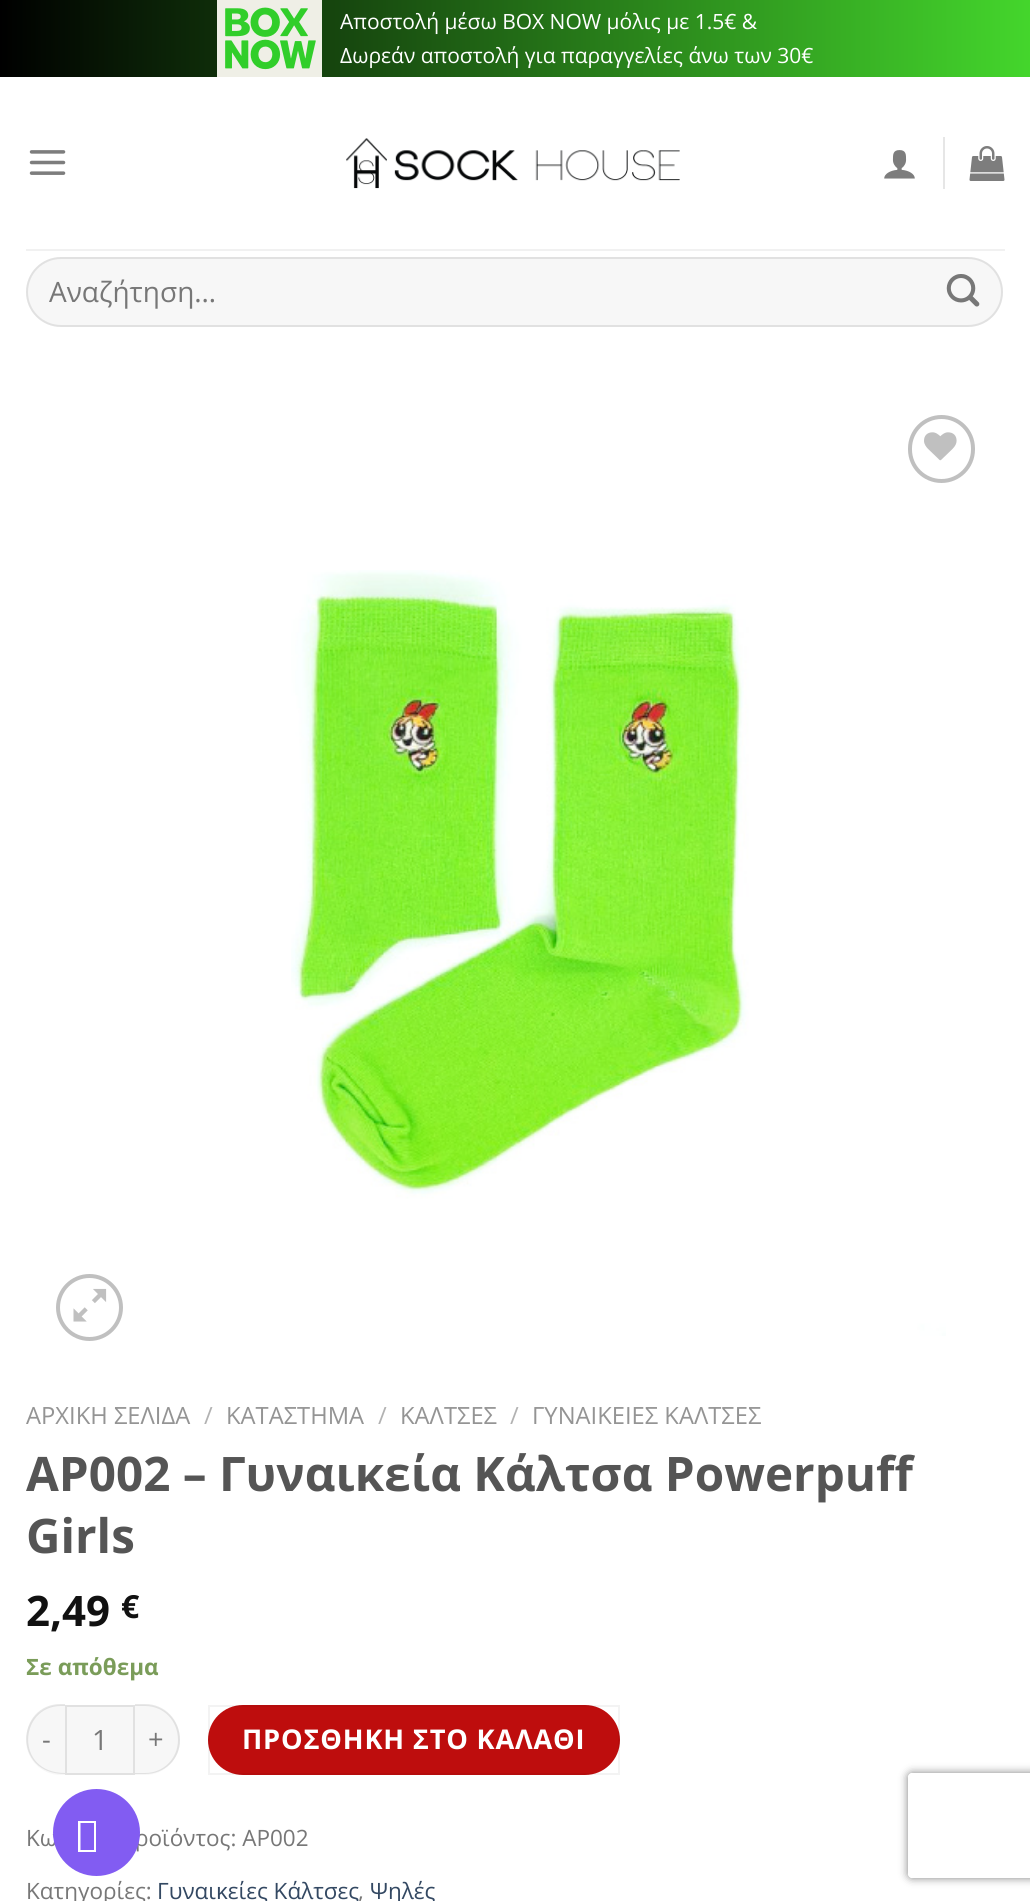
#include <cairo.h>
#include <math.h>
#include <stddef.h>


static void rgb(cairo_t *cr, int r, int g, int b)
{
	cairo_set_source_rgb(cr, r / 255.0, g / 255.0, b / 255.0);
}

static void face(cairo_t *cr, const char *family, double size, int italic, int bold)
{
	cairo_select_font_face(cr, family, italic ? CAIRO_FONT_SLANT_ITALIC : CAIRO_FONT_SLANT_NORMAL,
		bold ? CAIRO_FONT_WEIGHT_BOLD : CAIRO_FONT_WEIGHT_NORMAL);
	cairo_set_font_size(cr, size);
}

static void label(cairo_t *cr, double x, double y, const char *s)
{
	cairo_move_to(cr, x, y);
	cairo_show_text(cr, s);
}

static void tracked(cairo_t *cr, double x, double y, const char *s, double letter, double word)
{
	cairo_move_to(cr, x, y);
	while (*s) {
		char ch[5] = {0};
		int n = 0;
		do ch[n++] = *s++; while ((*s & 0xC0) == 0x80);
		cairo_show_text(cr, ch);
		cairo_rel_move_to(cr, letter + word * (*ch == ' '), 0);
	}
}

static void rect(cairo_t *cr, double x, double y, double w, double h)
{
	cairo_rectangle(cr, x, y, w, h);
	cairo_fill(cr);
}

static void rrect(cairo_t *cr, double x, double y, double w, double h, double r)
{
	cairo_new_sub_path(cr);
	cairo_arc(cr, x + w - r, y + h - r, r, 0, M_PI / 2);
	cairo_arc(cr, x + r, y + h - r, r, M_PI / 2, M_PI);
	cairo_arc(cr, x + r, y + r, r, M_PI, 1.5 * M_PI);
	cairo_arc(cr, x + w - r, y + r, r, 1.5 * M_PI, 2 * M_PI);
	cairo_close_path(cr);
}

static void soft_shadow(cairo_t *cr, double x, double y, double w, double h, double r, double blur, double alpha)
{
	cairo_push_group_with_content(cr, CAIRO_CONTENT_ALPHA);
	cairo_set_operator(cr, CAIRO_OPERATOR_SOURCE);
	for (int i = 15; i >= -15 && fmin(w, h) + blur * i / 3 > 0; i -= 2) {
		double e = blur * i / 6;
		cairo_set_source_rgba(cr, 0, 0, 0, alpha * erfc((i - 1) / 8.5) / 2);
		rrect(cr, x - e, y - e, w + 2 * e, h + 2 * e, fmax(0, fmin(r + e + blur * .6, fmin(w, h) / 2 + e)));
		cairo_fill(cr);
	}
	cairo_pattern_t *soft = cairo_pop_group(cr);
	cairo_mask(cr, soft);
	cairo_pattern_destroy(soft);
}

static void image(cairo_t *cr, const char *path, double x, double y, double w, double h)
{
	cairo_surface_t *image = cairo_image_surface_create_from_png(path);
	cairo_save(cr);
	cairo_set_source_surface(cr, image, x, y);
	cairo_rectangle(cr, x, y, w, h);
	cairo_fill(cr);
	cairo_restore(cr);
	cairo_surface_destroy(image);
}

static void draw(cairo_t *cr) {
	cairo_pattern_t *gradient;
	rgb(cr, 255, 255, 255);
	cairo_paint(cr);
	gradient = cairo_pattern_create_linear(0, 39, 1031, 38);
	cairo_pattern_add_color_stop_rgba(gradient, 0, 0, 0, 0, 1);
	cairo_pattern_add_color_stop_rgba(gradient, 1, 0.267, 0.839, 0.173, 1);
	cairo_set_source(cr, gradient);
	cairo_pattern_destroy(gradient);
	rect(cr, 0, 0, 1030, 77);
	image(cr, "image0.png", 217, 0, 105, 77);
	face(cr, "Open Sans", 21, 0, 0);
	rgb(cr, 255, 255, 255);
	label(cr, 340, 29, "Αποστολή μέσω BOX NOW μόλις με 1.5€ &");
	label(cr, 340, 63, "Δωρεάν αποστολή για παραγγελίες άνω των 30€");
	image(cr, "image1.png", 29, 150, 37, 25);
	image(cr, "image2.png", 346, 138, 334, 51);
	image(cr, "image3.png", 884, 150, 31, 29);
	rgb(cr, 230, 230, 230);
	rect(cr, 943, 137, 2, 52);
	image(cr, "image4.png", 969, 146, 36, 35);
	rgb(cr, 241, 241, 241);
	rect(cr, 26, 249, 979, 2);
	rgb(cr, 247, 247, 247);
	rrect(cr, 26, 257, 977, 70, 35);
	cairo_fill(cr);
	rrect(cr, 27, 258, 975, 68, 34);
	cairo_set_source_rgba(cr, 0, 0, 0, 0.09);
	cairo_stroke(cr);
	face(cr, "Open Sans", 28, 0, 0);
	rgb(cr, 119, 119, 119);
	label(cr, 49, 302, "Αναζήτηση…");
	image(cr, "image5.png", 946, 274, 34, 33);
	rrect(cr, 910, 417, 63, 64, 31.5);
	rgb(cr, 192, 192, 192);
	cairo_set_line_width(cr, 4);
	cairo_stroke(cr);
	image(cr, "image6.png", 924, 432, 33, 29);
	cairo_arc(cr, 89.5, 1307.5, 31.5, 0, 2 * M_PI);
	cairo_stroke(cr);
	image(cr, "image7.png", 73, 1288, 34, 34);
	image(cr, "image8.png", 291, 570, 655, 766);
	face(cr, "Open Sans", 23.75, 0, 0);
	rgb(cr, 148, 148, 148);
	label(cr, 26, 1424, "ΑΡΧΙΚΗ ΣΕΛΙΔΑ");
	rgb(cr, 178, 178, 178);
	label(cr, 204, 1424, "/");
	rgb(cr, 148, 148, 148);
	label(cr, 226, 1424, "ΚΑΤΑΣΤΗΜΑ");
	rgb(cr, 178, 178, 178);
	label(cr, 378, 1424, "/");
	rgb(cr, 148, 148, 148);
	label(cr, 400, 1424, "ΚΑΛΤΣΕΣ");
	rgb(cr, 178, 178, 178);
	label(cr, 510, 1424, "/");
	rgb(cr, 148, 148, 148);
	label(cr, 532, 1424, "ΓΥΝΑΙΚΕΙΕΣ ΚΑΛΤΣΕΣ");
	face(cr, "Open Sans", 47.6, 0, 1);
	rgb(cr, 85, 85, 85);
	label(cr, 26, 1491, "AP002 – Γυναικεία Κάλτσα Powerpuff");
	label(cr, 26, 1553, "Girls");
	face(cr, "Open Sans", 42, 0, 1);
	rgb(cr, 17, 17, 17);
	label(cr, 26, 1626, "2,49");
	face(cr, "Open Sans", 32, 0, 1);
	label(cr, 121, 1618, "€");
	face(cr, "Open Sans", 22.5, 0, 1);
	rgb(cr, 122, 156, 89);
	label(cr, 26, 1675, "Σε απόθεμα");
	rgb(cr, 247, 247, 247);
	cairo_new_path(cr);
	cairo_move_to(cr, 61, 1705);
	cairo_line_to(cr, 65, 1705);
	cairo_line_to(cr, 65, 1775);
	cairo_line_to(cr, 61, 1775);
	cairo_curve_to(cr, 41.5, 1775, 26, 1759.5, 26, 1740);
	cairo_curve_to(cr, 26, 1720.5, 41.5, 1705, 61, 1705);
	cairo_close_path(cr);
	cairo_fill(cr);
	cairo_set_source_rgba(cr, 0, 0, 0, 0.09);
	cairo_set_fill_rule(cr, CAIRO_FILL_RULE_EVEN_ODD);
	cairo_new_path(cr);
	cairo_move_to(cr, 61, 1704);
	cairo_line_to(cr, 65, 1704);
	cairo_line_to(cr, 65, 1774);
	cairo_curve_to(cr, 12, 1774, 16, 1704, 61, 1704);
	cairo_close_path(cr);
	cairo_move_to(cr, 61, 1706);
	cairo_line_to(cr, 65, 1706);
	cairo_line_to(cr, 65, 1773);
	cairo_curve_to(cr, 14, 1773, 19, 1706, 61, 1706);
	cairo_close_path(cr);
	cairo_fill(cr);
	face(cr, "Open Sans", 27.2, 0, 0);
	rgb(cr, 119, 119, 119);
	tracked(cr, 42, 1749, "-", 0.8, 0);
	rgb(cr, 247, 247, 247);
	cairo_rectangle(cr, 66, 1706, 68, 68);
	cairo_fill_preserve(cr);
	rgb(cr, 225, 225, 225);
	cairo_set_line_width(cr, 2);
	cairo_stroke(cr);
	face(cr, "Open Sans", 28, 0, 0);
	rgb(cr, 119, 119, 119);
	label(cr, 92, 1750, "1");
	rgb(cr, 247, 247, 247);
	cairo_new_path(cr);
	cairo_move_to(cr, 135, 1705);
	cairo_line_to(cr, 145, 1705);
	cairo_curve_to(cr, 164.5, 1705, 180, 1720.5, 180, 1740);
	cairo_curve_to(cr, 180, 1759.5, 164.5, 1775, 145, 1775);
	cairo_line_to(cr, 135, 1775);
	cairo_close_path(cr);
	cairo_fill(cr);
	cairo_set_source_rgba(cr, 0, 0, 0, 0.09);
	cairo_new_path(cr);
	cairo_move_to(cr, 135, 1704);
	cairo_line_to(cr, 145, 1704);
	cairo_curve_to(cr, 165, 1704, 180, 1720, 180, 1740);
	cairo_curve_to(cr, 180, 1759, 165, 1774, 145, 1774);
	cairo_line_to(cr, 135, 1774);
	cairo_close_path(cr);
	cairo_move_to(cr, 135, 1706);
	cairo_line_to(cr, 145, 1706);
	cairo_curve_to(cr, 164, 1706, 178, 1721, 178, 1740);
	cairo_curve_to(cr, 178, 1758, 164, 1773, 145, 1773);
	cairo_line_to(cr, 135, 1773);
	cairo_close_path(cr);
	cairo_fill(cr);
	face(cr, "Open Sans", 27.2, 0, 0);
	rgb(cr, 119, 119, 119);
	tracked(cr, 148, 1749, "+", 0.8, 0);
	rgb(cr, 190, 13, 13);
	rrect(cr, 208, 1705, 412, 70, 35);
	cairo_fill(cr);
	cairo_rectangle(cr, 209, 1706, 410, 68);
	cairo_set_source_rgba(cr, 0, 0, 0, 0.05);
	cairo_stroke(cr);
	face(cr, "Open Sans", 27.2, 0, 1);
	rgb(cr, 255, 255, 255);
	tracked(cr, 242, 1749, "ΠΡΟΣΘΗΚΗ ΣΤΟ ΚΑΛΑΘΙ", 0.8, 0);
	face(cr, "Open Sans", 22.5, 0, 0);
	rgb(cr, 119, 119, 119);
	label(cr, 26, 1846, "Κω");
	label(cr, 135, 1846, "ροϊόντος: AP002");
	label(cr, 26, 1899, "Κατηγορίες:");
	rgb(cr, 51, 72, 98);
	label(cr, 157, 1899, "Γυναικείες Κάλτσες");
	rgb(cr, 119, 119, 119);
	label(cr, 358, 1899, ",");
	rgb(cr, 51, 72, 98);
	label(cr, 370, 1899, "Ψηλές");
	cairo_save(cr);
	cairo_new_path(cr);
	cairo_move_to(cr, 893, 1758);
	cairo_line_to(cr, 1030, 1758);
	cairo_line_to(cr, 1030, 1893);
	cairo_line_to(cr, 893, 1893);
	cairo_close_path(cr);
	cairo_move_to(cr, 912, 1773);
	cairo_line_to(cr, 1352, 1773);
	cairo_curve_to(cr, 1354, 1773, 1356, 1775, 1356, 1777);
	cairo_line_to(cr, 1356, 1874);
	cairo_curve_to(cr, 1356, 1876, 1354, 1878, 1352, 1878);
	cairo_line_to(cr, 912, 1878);
	cairo_curve_to(cr, 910, 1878, 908, 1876, 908, 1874);
	cairo_line_to(cr, 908, 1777);
	cairo_curve_to(cr, 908, 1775, 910, 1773, 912, 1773);
	cairo_close_path(cr);
	cairo_clip(cr);
	rgb(cr, 128, 128, 128);
	soft_shadow(cr, 908, 1773, 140, 105, 4, 4.5, 1);
	cairo_restore(cr);
	rgb(cr, 130, 92, 242);
	cairo_arc(cr, 96.5, 1832.5, 43.5, 0, 2 * M_PI);
	cairo_fill(cr);
	rgb(cr, 255, 255, 255);
	cairo_set_fill_rule(cr, CAIRO_FILL_RULE_WINDING);
	cairo_new_path(cr);
	cairo_move_to(cr, 78, 1852);
	cairo_line_to(cr, 78, 1821);
	cairo_line_to(cr, 96, 1821);
	cairo_line_to(cr, 96, 1852);
	cairo_close_path(cr);
	cairo_move_to(cr, 80.5, 1850);
	cairo_line_to(cr, 94, 1850);
	cairo_line_to(cr, 94, 1823);
	cairo_line_to(cr, 80.5, 1823);
	cairo_close_path(cr);
	cairo_fill(cr);
}

int main(void) {
	cairo_surface_t *surface = cairo_image_surface_create(CAIRO_FORMAT_RGB24, 1030, 1901);
	cairo_t *cr = cairo_create(surface);
	cairo_font_options_t *options = cairo_font_options_create();
	cairo_font_options_set_hint_metrics(options, CAIRO_HINT_METRICS_OFF);
	cairo_font_options_set_hint_style(options, CAIRO_HINT_STYLE_NONE);
	cairo_set_font_options(cr, options);
	cairo_set_miter_limit(cr, 4);
	draw(cr);
	cairo_surface_write_to_png(surface, "render.png");
	cairo_font_options_destroy(options);
	cairo_destroy(cr);
	cairo_surface_destroy(surface);
	return 0;
}
